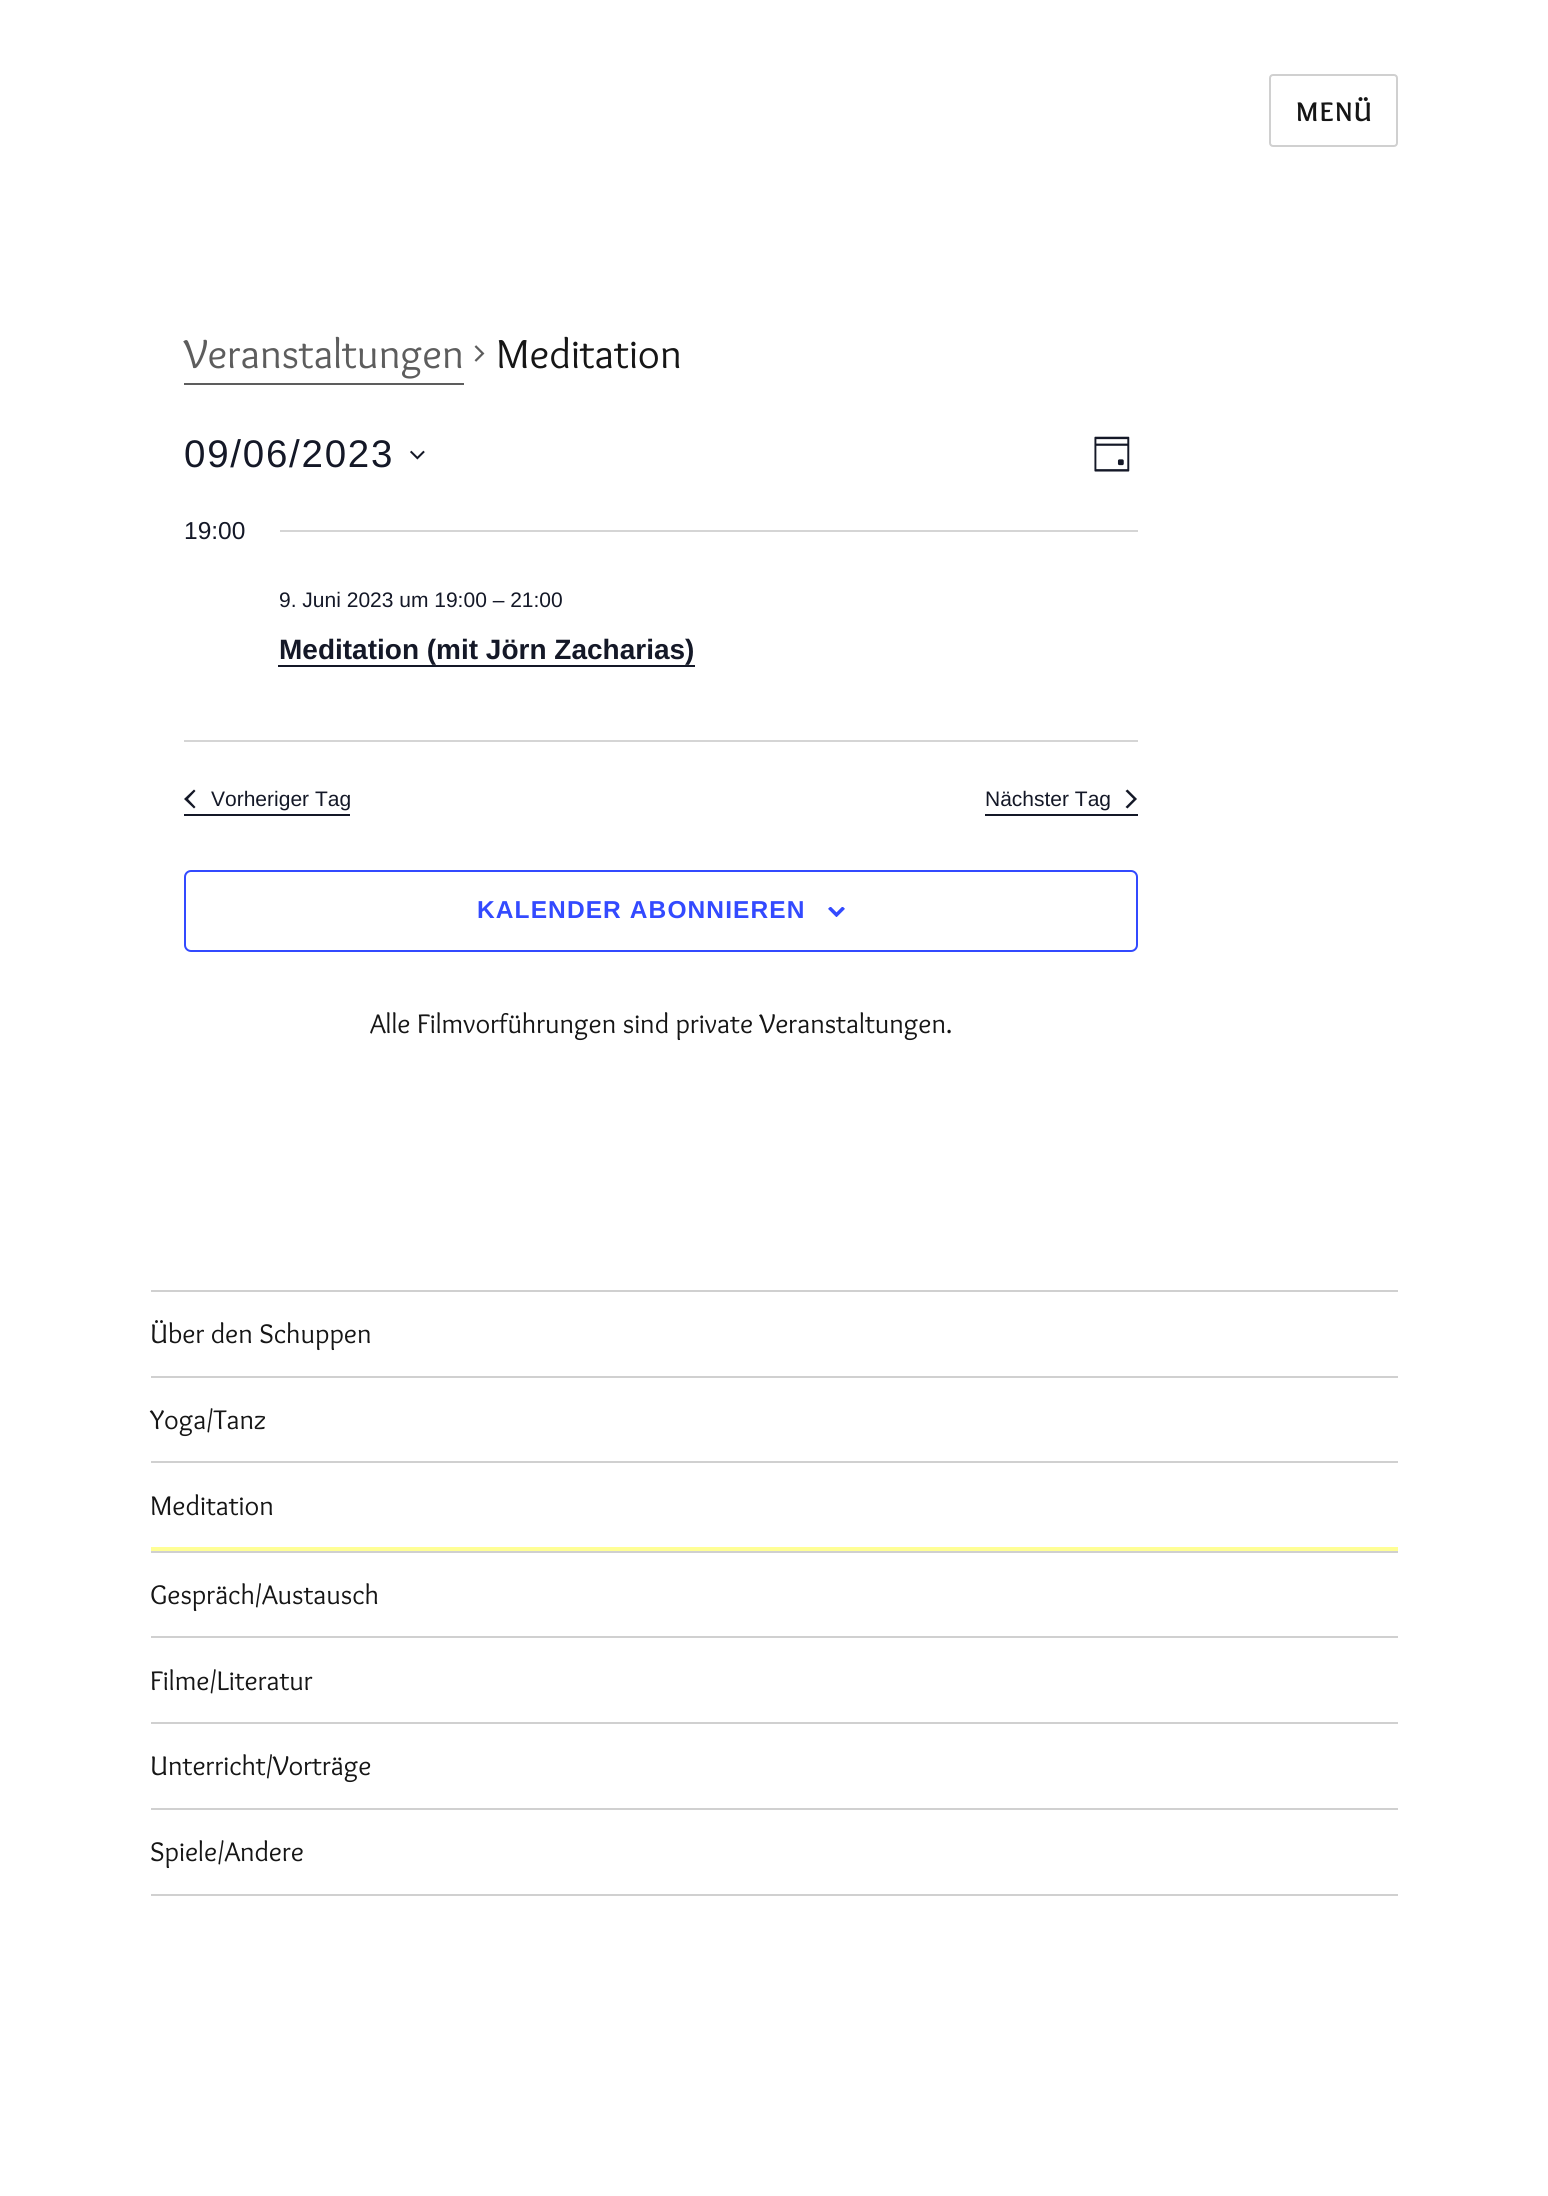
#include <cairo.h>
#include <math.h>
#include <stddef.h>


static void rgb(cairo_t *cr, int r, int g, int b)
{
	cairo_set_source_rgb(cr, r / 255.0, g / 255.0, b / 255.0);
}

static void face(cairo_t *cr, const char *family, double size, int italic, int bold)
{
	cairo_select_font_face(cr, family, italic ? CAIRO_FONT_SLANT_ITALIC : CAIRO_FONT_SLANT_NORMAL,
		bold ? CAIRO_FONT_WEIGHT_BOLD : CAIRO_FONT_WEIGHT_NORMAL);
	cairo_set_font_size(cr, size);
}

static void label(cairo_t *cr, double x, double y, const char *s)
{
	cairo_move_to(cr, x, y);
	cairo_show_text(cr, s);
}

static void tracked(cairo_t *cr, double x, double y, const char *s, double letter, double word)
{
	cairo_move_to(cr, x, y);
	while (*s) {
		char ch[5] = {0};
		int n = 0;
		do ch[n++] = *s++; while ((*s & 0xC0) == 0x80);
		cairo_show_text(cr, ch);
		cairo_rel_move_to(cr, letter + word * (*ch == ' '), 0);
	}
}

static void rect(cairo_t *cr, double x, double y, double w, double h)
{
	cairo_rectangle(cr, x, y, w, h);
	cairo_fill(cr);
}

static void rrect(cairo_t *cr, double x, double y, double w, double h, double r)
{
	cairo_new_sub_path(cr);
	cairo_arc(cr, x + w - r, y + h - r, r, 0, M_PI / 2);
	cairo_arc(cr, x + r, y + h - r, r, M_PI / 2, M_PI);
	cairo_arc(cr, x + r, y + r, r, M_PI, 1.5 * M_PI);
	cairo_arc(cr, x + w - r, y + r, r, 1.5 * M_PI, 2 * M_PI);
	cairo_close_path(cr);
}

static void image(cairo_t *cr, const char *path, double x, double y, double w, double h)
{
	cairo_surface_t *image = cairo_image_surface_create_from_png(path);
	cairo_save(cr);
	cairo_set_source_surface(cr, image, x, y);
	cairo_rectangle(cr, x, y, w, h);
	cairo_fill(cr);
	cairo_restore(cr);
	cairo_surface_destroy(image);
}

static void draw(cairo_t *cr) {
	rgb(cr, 255, 255, 255);
	cairo_paint(cr);
	rrect(cr, 1270, 75, 127, 71, 3);
	rgb(cr, 208, 208, 208);
	cairo_stroke(cr);
	face(cr, "Overlock", 28, 0, 1);
	rgb(cr, 22, 22, 22);
	tracked(cr, 1296, 121, "MENÜ", 1.5, 0);
	rgb(cr, 93, 93, 93);
	cairo_new_path(cr);
	cairo_move_to(cr, 184, 383);
	cairo_line_to(cr, 184, 385);
	cairo_line_to(cr, 464, 385);
	cairo_line_to(cr, 464, 326);
	cairo_line_to(cr, 464, 383);
	cairo_close_path(cr);
	cairo_fill(cr);
	face(cr, "Overlock", 42, 0, 0);
	label(cr, 184, 368, "Veranstaltungen");
	image(cr, "image0.png", 474, 345, 11, 17);
	rgb(cr, 22, 22, 22);
	label(cr, 496, 368, "Meditation");
	face(cr, "Liberation Sans", 38.5, 0, 0);
	rgb(cr, 20, 24, 39);
	tracked(cr, 184, 467, "09/06/2023", 1.75, 0);
	image(cr, "image1.png", 410, 450, 15, 10);
	image(cr, "image2.png", 1094, 436, 36, 36);
	face(cr, "Liberation Sans", 24.5, 0, 0);
	label(cr, 184, 539, "19:00");
	rgb(cr, 213, 213, 213);
	rect(cr, 280, 530, 858, 2);
	face(cr, "Liberation Sans", 21, 0, 0);
	rgb(cr, 20, 24, 39);
	label(cr, 279, 607, "9. Juni 2023 um 19:00 – 21:00");
	face(cr, "Liberation Sans", 28, 0, 1);
	label(cr, 279, 659, "Meditation (mit Jörn Zacharias)");
	cairo_new_path(cr);
	cairo_move_to(cr, 278, 635);
	cairo_line_to(cr, 278, 667);
	cairo_line_to(cr, 695, 667);
	cairo_line_to(cr, 695, 635);
	cairo_line_to(cr, 695, 665);
	cairo_line_to(cr, 278, 665);
	cairo_close_path(cr);
	cairo_fill(cr);
	rgb(cr, 213, 213, 213);
	rect(cr, 184, 740, 954, 2);
	rgb(cr, 20, 24, 39);
	rect(cr, 184, 814, 166, 2);
	cairo_new_path(cr);
	cairo_move_to(cr, 195.5, 807);
	cairo_line_to(cr, 194, 808.5);
	cairo_line_to(cr, 184, 799);
	cairo_line_to(cr, 194, 789.5);
	cairo_line_to(cr, 195.5, 791);
	cairo_line_to(cr, 188, 799);
	cairo_close_path(cr);
	cairo_fill(cr);
	face(cr, "Liberation Sans", 21, 0, 0);
	label(cr, 211, 806, "Vorheriger Tag");
	cairo_new_path(cr);
	cairo_move_to(cr, 985, 786);
	cairo_line_to(cr, 985, 816);
	cairo_line_to(cr, 1138, 816);
	cairo_line_to(cr, 1138, 786);
	cairo_line_to(cr, 1138, 814);
	cairo_line_to(cr, 985, 814);
	cairo_close_path(cr);
	cairo_fill(cr);
	label(cr, 985, 806, "Nächster Tag");
	cairo_new_path(cr);
	cairo_move_to(cr, 1125.5, 791);
	cairo_line_to(cr, 1127.5, 789.5);
	cairo_line_to(cr, 1137, 799);
	cairo_line_to(cr, 1127.5, 808.5);
	cairo_line_to(cr, 1125.5, 807);
	cairo_line_to(cr, 1133.5, 799);
	cairo_close_path(cr);
	cairo_fill(cr);
	rrect(cr, 185, 871, 952, 80, 6);
	rgb(cr, 51, 74, 255);
	cairo_stroke(cr);
	face(cr, "Liberation Sans", 24.5, 0, 1);
	tracked(cr, 477, 918, "KALENDER ABONNIEREN", 1.1, 0);
	image(cr, "image3.png", 828, 907, 17, 10);
	face(cr, "Overlock", 28, 0, 0);
	rgb(cr, 22, 22, 22);
	label(cr, 370, 1033, "Alle Filmvorführungen sind private Veranstaltungen.");
	rgb(cr, 208, 208, 208);
	rect(cr, 151, 1894, 1247, 2);
	rect(cr, 151, 1290, 1247, 2);
	rgb(cr, 22, 22, 22);
	label(cr, 150, 1343, "Über den Schuppen");
	rgb(cr, 208, 208, 208);
	rect(cr, 151, 1376, 1247, 2);
	rgb(cr, 22, 22, 22);
	label(cr, 150, 1429, "Yoga/Tanz");
	rgb(cr, 208, 208, 208);
	rect(cr, 151, 1461, 1247, 2);
	rgb(cr, 255, 255, 149);
	rect(cr, 151, 1547, 1247, 4);
	rgb(cr, 22, 22, 22);
	label(cr, 150, 1515, "Meditation");
	rgb(cr, 208, 208, 208);
	rect(cr, 151, 1551, 1247, 2);
	rgb(cr, 22, 22, 22);
	label(cr, 150, 1604, "Gespräch/Austausch");
	rgb(cr, 208, 208, 208);
	rect(cr, 151, 1636, 1247, 2);
	rgb(cr, 22, 22, 22);
	label(cr, 150, 1690, "Filme/Literatur");
	rgb(cr, 208, 208, 208);
	rect(cr, 151, 1722, 1247, 2);
	rgb(cr, 22, 22, 22);
	label(cr, 150, 1775, "Unterricht/Vorträge");
	rgb(cr, 208, 208, 208);
	rect(cr, 151, 1808, 1247, 2);
	rgb(cr, 22, 22, 22);
	label(cr, 150, 1861, "Spiele/Andere");
}

int main(void) {
	cairo_surface_t *surface = cairo_image_surface_create(CAIRO_FORMAT_RGB24, 1548, 2196);
	cairo_t *cr = cairo_create(surface);
	cairo_font_options_t *options = cairo_font_options_create();
	cairo_font_options_set_hint_metrics(options, CAIRO_HINT_METRICS_OFF);
	cairo_font_options_set_hint_style(options, CAIRO_HINT_STYLE_NONE);
	cairo_set_font_options(cr, options);
	cairo_set_miter_limit(cr, 4);
	draw(cr);
	cairo_surface_write_to_png(surface, "render.png");
	cairo_font_options_destroy(options);
	cairo_destroy(cr);
	cairo_surface_destroy(surface);
	return 0;
}
